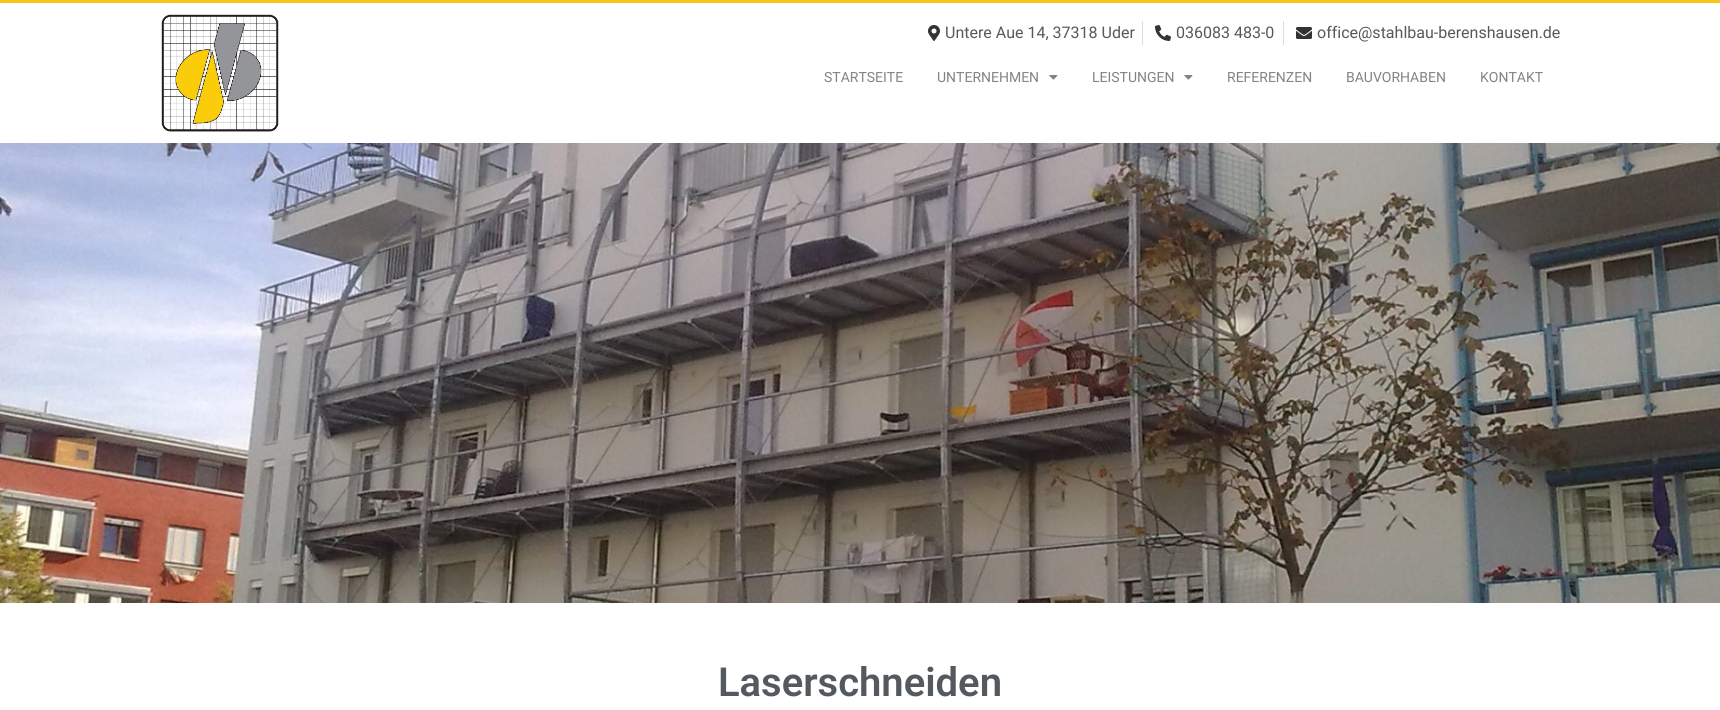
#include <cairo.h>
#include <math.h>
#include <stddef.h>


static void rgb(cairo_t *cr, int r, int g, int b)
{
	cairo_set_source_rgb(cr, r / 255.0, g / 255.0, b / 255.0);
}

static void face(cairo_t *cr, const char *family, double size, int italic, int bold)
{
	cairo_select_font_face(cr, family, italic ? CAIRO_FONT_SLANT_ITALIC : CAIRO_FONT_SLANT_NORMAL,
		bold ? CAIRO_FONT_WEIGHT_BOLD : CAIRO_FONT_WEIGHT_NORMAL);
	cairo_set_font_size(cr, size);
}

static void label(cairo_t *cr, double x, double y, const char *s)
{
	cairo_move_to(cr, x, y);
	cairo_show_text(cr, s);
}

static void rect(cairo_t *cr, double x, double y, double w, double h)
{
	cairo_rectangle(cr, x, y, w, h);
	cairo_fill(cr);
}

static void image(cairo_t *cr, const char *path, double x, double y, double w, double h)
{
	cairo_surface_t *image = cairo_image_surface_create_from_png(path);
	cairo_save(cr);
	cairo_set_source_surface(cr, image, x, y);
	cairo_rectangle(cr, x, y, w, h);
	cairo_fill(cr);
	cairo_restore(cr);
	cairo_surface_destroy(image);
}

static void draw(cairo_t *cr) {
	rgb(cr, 255, 255, 255);
	cairo_paint(cr);
	rgb(cr, 247, 196, 23);
	rect(cr, 0, 0, 1720, 3);
	image(cr, "image0.png", 161, 14, 118, 118);
	image(cr, "image1.png", 928, 25, 12, 16);
	face(cr, "Roboto", 16, 0, 0);
	rgb(cr, 84, 89, 95);
	label(cr, 945, 38, "Untere Aue 14, 37318 Uder");
	rgb(cr, 221, 221, 221);
	rect(cr, 1142, 21, 1, 24);
	image(cr, "image2.png", 1155, 25, 16, 16);
	rgb(cr, 84, 89, 95);
	label(cr, 1176, 38, "036083 483-0");
	rgb(cr, 221, 221, 221);
	rect(cr, 1283, 21, 1, 24);
	image(cr, "image3.png", 1296, 27, 16, 12);
	rgb(cr, 84, 89, 95);
	label(cr, 1317, 38, "office@stahlbau-berenshausen.de");
	face(cr, "Roboto", 14, 0, 0);
	rgb(cr, 131, 131, 131);
	label(cr, 824, 82, "STARTSEITE");
	label(cr, 937, 82, "UNTERNEHMEN");
	image(cr, "image4.png", 1049, 75, 9, 5);
	label(cr, 1092, 82, "LEISTUNGEN");
	image(cr, "image4.png", 1184, 75, 9, 5);
	label(cr, 1227, 82, "REFERENZEN");
	label(cr, 1346, 82, "BAUVORHABEN");
	label(cr, 1480, 82, "KONTAKT");
	image(cr, "image5.png", 0, 143, 1720, 460);
	face(cr, "Roboto SemiBold", 40, 0, 0);
	rgb(cr, 84, 89, 95);
	label(cr, 718, 696, "Laserschneiden");
}

int main(void) {
	cairo_surface_t *surface = cairo_image_surface_create(CAIRO_FORMAT_RGB24, 1720, 710);
	cairo_t *cr = cairo_create(surface);
	cairo_font_options_t *options = cairo_font_options_create();
	cairo_font_options_set_hint_metrics(options, CAIRO_HINT_METRICS_OFF);
	cairo_font_options_set_hint_style(options, CAIRO_HINT_STYLE_NONE);
	cairo_set_font_options(cr, options);
	cairo_set_miter_limit(cr, 4);
	draw(cr);
	cairo_surface_write_to_png(surface, "render.png");
	cairo_font_options_destroy(options);
	cairo_destroy(cr);
	cairo_surface_destroy(surface);
	return 0;
}
